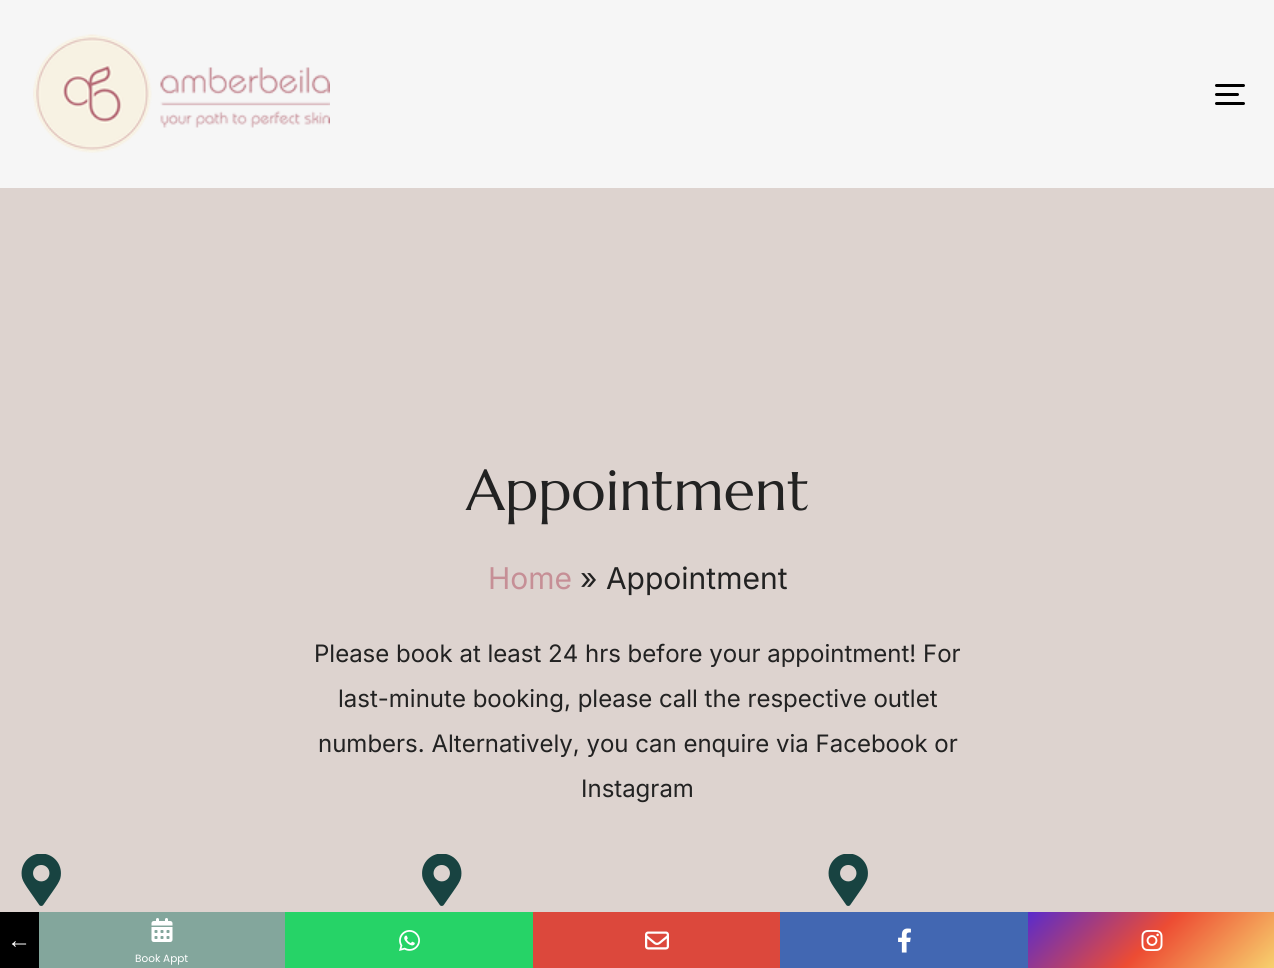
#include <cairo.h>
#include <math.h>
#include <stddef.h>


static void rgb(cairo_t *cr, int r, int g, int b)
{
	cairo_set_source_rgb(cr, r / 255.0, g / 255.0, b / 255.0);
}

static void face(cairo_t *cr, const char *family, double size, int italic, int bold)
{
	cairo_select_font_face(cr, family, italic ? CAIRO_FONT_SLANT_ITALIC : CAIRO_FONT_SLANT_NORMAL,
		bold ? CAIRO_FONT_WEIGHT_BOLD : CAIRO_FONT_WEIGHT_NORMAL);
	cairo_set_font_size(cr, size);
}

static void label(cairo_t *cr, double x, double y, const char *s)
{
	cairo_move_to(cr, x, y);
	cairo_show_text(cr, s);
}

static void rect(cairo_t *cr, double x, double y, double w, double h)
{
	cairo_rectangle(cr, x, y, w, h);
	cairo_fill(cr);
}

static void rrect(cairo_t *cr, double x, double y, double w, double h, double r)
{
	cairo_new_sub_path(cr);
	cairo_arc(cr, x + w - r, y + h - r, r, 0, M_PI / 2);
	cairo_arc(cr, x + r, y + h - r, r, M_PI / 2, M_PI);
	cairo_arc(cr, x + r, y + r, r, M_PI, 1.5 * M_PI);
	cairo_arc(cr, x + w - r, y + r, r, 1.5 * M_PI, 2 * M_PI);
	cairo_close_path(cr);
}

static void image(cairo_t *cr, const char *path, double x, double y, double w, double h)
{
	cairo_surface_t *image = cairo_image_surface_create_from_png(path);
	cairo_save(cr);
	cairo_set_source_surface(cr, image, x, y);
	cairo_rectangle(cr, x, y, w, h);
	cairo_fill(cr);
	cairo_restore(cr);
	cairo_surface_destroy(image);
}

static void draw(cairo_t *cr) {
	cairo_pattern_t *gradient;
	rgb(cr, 221, 211, 207);
	cairo_paint(cr);
	rgb(cr, 246, 246, 246);
	rect(cr, 0, 0, 1274, 188);
	image(cr, "image0.png", 33, 34, 297, 119);
	rgb(cr, 0, 0, 0);
	rrect(cr, 1215, 84, 30, 3, 1.5);
	cairo_fill(cr);
	rrect(cr, 1215, 93, 24, 3, 1.5);
	cairo_fill(cr);
	rrect(cr, 1215, 102, 30, 3, 1.5);
	cairo_fill(cr);
	face(cr, "Marcellus", 57, 0, 0);
	rgb(cr, 34, 34, 34);
	label(cr, 466, 510, "Appointment");
	face(cr, "Inter", 30, 0, 0);
	rgb(cr, 198, 143, 150);
	label(cr, 488, 589, "Home");
	rgb(cr, 34, 34, 34);
	label(cr, 580, 589, "» Appointment");
	face(cr, "Inter", 24, 0, 0);
	label(cr, 314, 662, "Please book at least 24 hrs before your appointment! For");
	label(cr, 338, 707, "last-minute booking, please call the respective outlet");
	label(cr, 318, 752, "numbers. Alternatively, you can enquire via Facebook or");
	label(cr, 581, 797, "Instagram");
	image(cr, "image1.png", 21, 854, 40, 52);
	image(cr, "image2.png", 422, 854, 40, 52);
	image(cr, "image1.png", 828, 854, 40, 52);
	rgb(cr, 0, 0, 0);
	rect(cr, 0, 912, 39, 56);
	face(cr, "Liberation Serif", 24, 0, 0);
	rgb(cr, 255, 255, 255);
	label(cr, 7, 948, "←");
	rgb(cr, 38, 211, 103);
	rect(cr, 285, 912, 248, 56);
	image(cr, "image3.png", 399, 930, 21, 21);
	rgb(cr, 220, 72, 60);
	rect(cr, 533, 912, 247, 56);
	image(cr, "image4.png", 645, 931, 24, 19);
	rgb(cr, 66, 103, 178);
	rect(cr, 780, 912, 248, 56);
	image(cr, "image5.png", 898, 928, 13, 25);
	gradient = cairo_pattern_create_linear(1075, 864, 1227, 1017);
	cairo_pattern_add_color_stop_rgba(gradient, 0, 0.345, 0.169, 0.804, 1);
	cairo_pattern_add_color_stop_rgba(gradient, 0.5, 0.929, 0.298, 0.2, 1);
	cairo_pattern_add_color_stop_rgba(gradient, 1, 0.969, 0.827, 0.435, 1);
	cairo_set_source(cr, gradient);
	cairo_pattern_destroy(gradient);
	rect(cr, 1028, 912, 246, 56);
	image(cr, "image6.png", 1141, 930, 22, 21);
	rgb(cr, 131, 166, 156);
	rect(cr, 39, 912, 246, 56);
	image(cr, "image7.png", 151, 918, 22, 24);
	face(cr, "Poppins", 10.5, 0, 0);
	rgb(cr, 255, 255, 255);
	label(cr, 135, 962, "Book Appt");
}

int main(void) {
	cairo_surface_t *surface = cairo_image_surface_create(CAIRO_FORMAT_RGB24, 1274, 968);
	cairo_t *cr = cairo_create(surface);
	cairo_font_options_t *options = cairo_font_options_create();
	cairo_font_options_set_hint_metrics(options, CAIRO_HINT_METRICS_OFF);
	cairo_font_options_set_hint_style(options, CAIRO_HINT_STYLE_NONE);
	cairo_set_font_options(cr, options);
	cairo_set_miter_limit(cr, 4);
	draw(cr);
	cairo_surface_write_to_png(surface, "render.png");
	cairo_font_options_destroy(options);
	cairo_destroy(cr);
	cairo_surface_destroy(surface);
	return 0;
}
